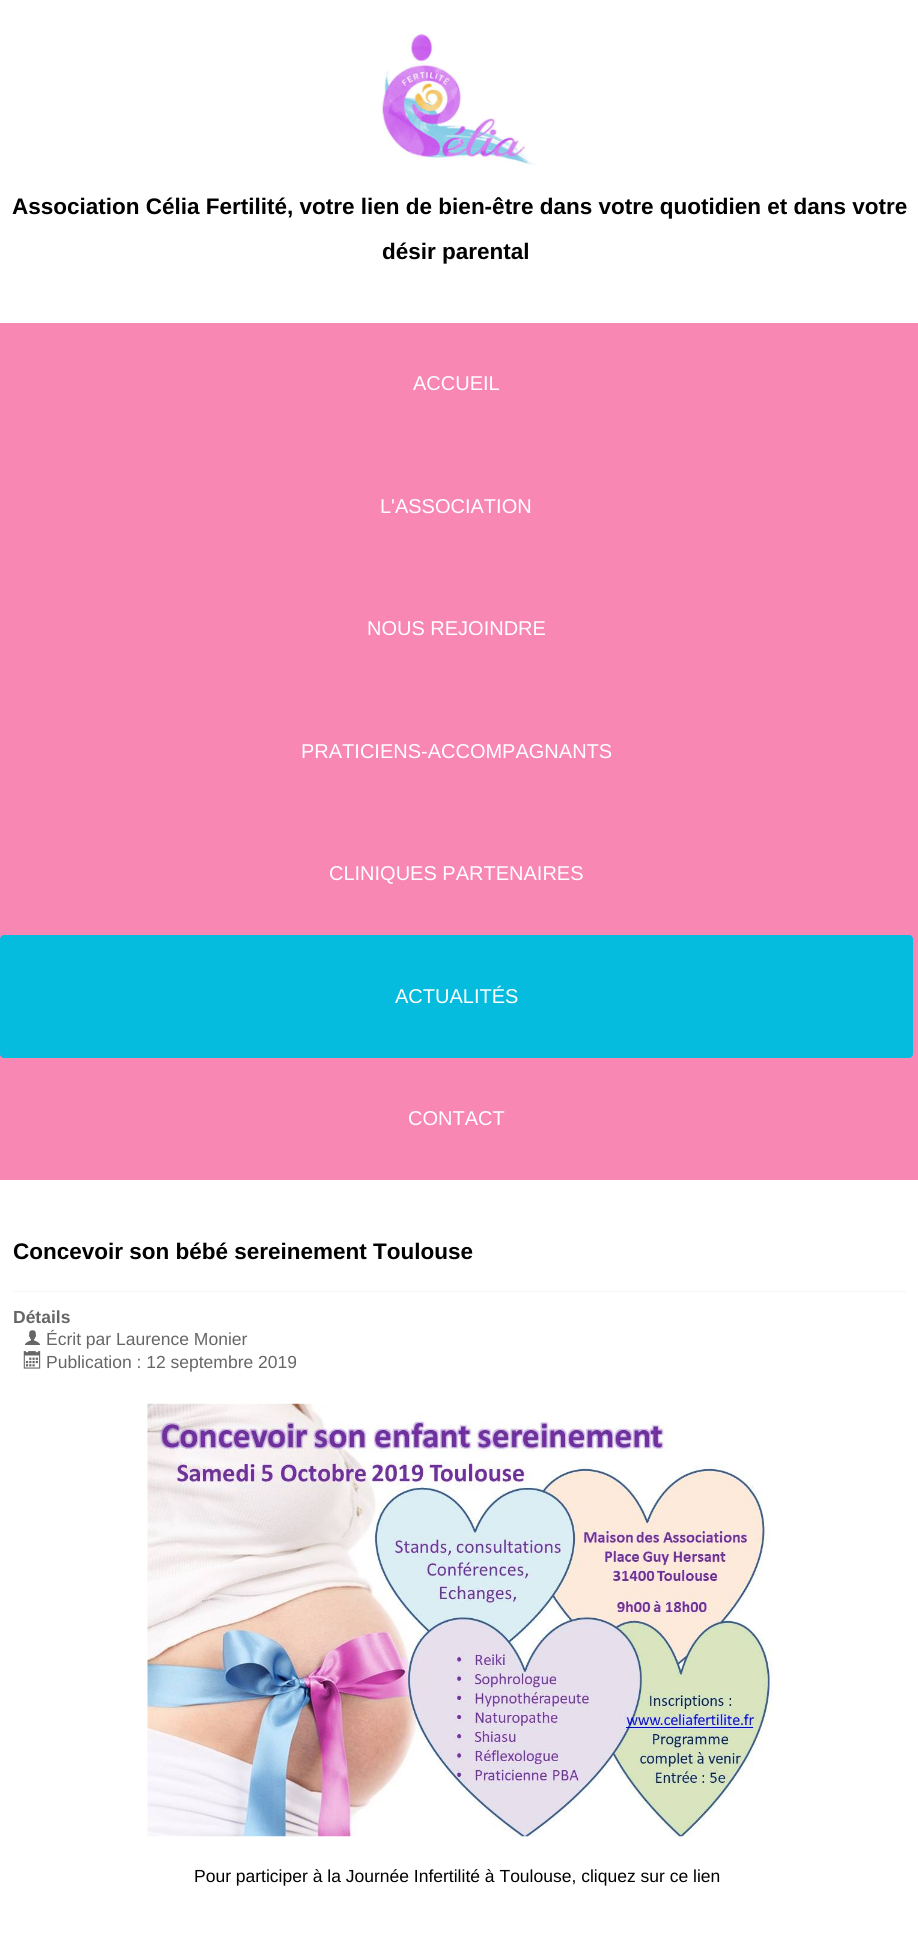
#include <cairo.h>
#include <math.h>
#include <stddef.h>


static void rgb(cairo_t *cr, int r, int g, int b)
{
	cairo_set_source_rgb(cr, r / 255.0, g / 255.0, b / 255.0);
}

static void face(cairo_t *cr, const char *family, double size, int italic, int bold)
{
	cairo_select_font_face(cr, family, italic ? CAIRO_FONT_SLANT_ITALIC : CAIRO_FONT_SLANT_NORMAL,
		bold ? CAIRO_FONT_WEIGHT_BOLD : CAIRO_FONT_WEIGHT_NORMAL);
	cairo_set_font_size(cr, size);
}

static void label(cairo_t *cr, double x, double y, const char *s)
{
	cairo_move_to(cr, x, y);
	cairo_show_text(cr, s);
}

static void rect(cairo_t *cr, double x, double y, double w, double h)
{
	cairo_rectangle(cr, x, y, w, h);
	cairo_fill(cr);
}

static void rrect(cairo_t *cr, double x, double y, double w, double h, double r)
{
	cairo_new_sub_path(cr);
	cairo_arc(cr, x + w - r, y + h - r, r, 0, M_PI / 2);
	cairo_arc(cr, x + r, y + h - r, r, M_PI / 2, M_PI);
	cairo_arc(cr, x + r, y + r, r, M_PI, 1.5 * M_PI);
	cairo_arc(cr, x + w - r, y + r, r, 1.5 * M_PI, 2 * M_PI);
	cairo_close_path(cr);
}

static void image(cairo_t *cr, const char *path, double x, double y, double w, double h)
{
	cairo_surface_t *image = cairo_image_surface_create_from_png(path);
	cairo_save(cr);
	cairo_set_source_surface(cr, image, x, y);
	cairo_rectangle(cr, x, y, w, h);
	cairo_fill(cr);
	cairo_restore(cr);
	cairo_surface_destroy(image);
}

static void draw(cairo_t *cr) {
	rgb(cr, 255, 255, 255);
	cairo_paint(cr);
	image(cr, "image0.png", 380, 33, 156, 132);
	face(cr, "Liberation Sans", 22.5, 0, 1);
	rgb(cr, 0, 0, 0);
	label(cr, 12, 214, "Association Célia Fertilité, votre lien de bien-être dans votre quotidien et dans votre");
	label(cr, 382, 259, "désir parental");
	rgb(cr, 248, 135, 180);
	rect(cr, 0, 323, 918, 857);
	face(cr, "Liberation Sans", 20, 0, 0);
	rgb(cr, 255, 255, 255);
	label(cr, 413, 390, "ACCUEIL");
	label(cr, 380, 513, "L'ASSOCIATION");
	label(cr, 367, 635, "NOUS REJOINDRE");
	label(cr, 301, 758, "PRATICIENS-ACCOMPAGNANTS");
	label(cr, 329, 880, "CLINIQUES PARTENAIRES");
	rgb(cr, 5, 188, 222);
	rrect(cr, 0, 935, 913, 123, 4);
	cairo_fill(cr);
	rgb(cr, 255, 255, 255);
	label(cr, 395, 1003, "ACTUALITÉS");
	label(cr, 408, 1125, "CONTACT");
	rgb(cr, 245, 245, 245);
	rect(cr, 13, 1291, 893, 1);
	face(cr, "Liberation Sans", 22.5, 0, 1);
	rgb(cr, 0, 0, 0);
	label(cr, 13, 1259, "Concevoir son bébé sereinement Toulouse");
	face(cr, "Liberation Sans", 17.5, 0, 1);
	rgb(cr, 102, 102, 102);
	label(cr, 13, 1323, "Détails");
	image(cr, "image1.png", 24, 1330, 17, 15);
	face(cr, "Liberation Sans", 17.5, 0, 0);
	label(cr, 46, 1345, "Écrit par Laurence Monier");
	image(cr, "image2.png", 23, 1351, 18, 18);
	label(cr, 46, 1368, "Publication : 12 septembre 2019");
	image(cr, "image3.png", 147, 1403, 626, 434);
	rgb(cr, 0, 0, 0);
	label(cr, 194, 1882, "Pour participer à la Journée Infertilité à Toulouse, cliquez sur ce lien");
}

int main(void) {
	cairo_surface_t *surface = cairo_image_surface_create(CAIRO_FORMAT_RGB24, 918, 1945);
	cairo_t *cr = cairo_create(surface);
	cairo_font_options_t *options = cairo_font_options_create();
	cairo_font_options_set_hint_metrics(options, CAIRO_HINT_METRICS_OFF);
	cairo_font_options_set_hint_style(options, CAIRO_HINT_STYLE_NONE);
	cairo_set_font_options(cr, options);
	cairo_set_miter_limit(cr, 4);
	draw(cr);
	cairo_surface_write_to_png(surface, "render.png");
	cairo_font_options_destroy(options);
	cairo_destroy(cr);
	cairo_surface_destroy(surface);
	return 0;
}
